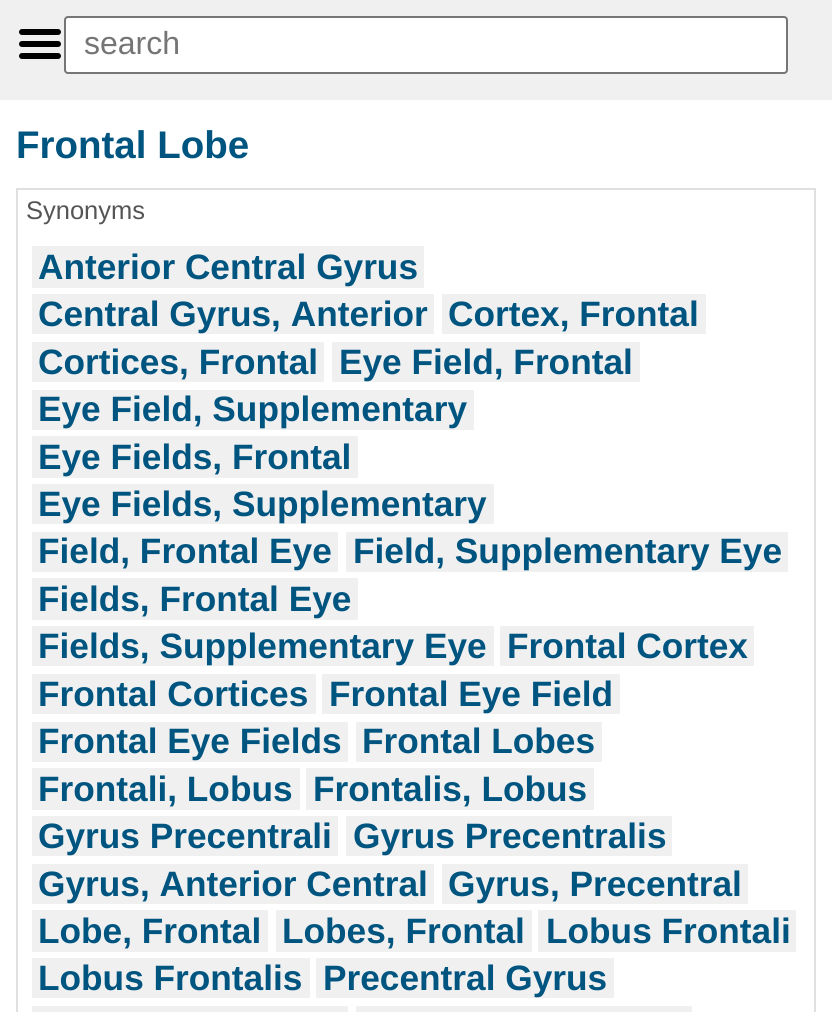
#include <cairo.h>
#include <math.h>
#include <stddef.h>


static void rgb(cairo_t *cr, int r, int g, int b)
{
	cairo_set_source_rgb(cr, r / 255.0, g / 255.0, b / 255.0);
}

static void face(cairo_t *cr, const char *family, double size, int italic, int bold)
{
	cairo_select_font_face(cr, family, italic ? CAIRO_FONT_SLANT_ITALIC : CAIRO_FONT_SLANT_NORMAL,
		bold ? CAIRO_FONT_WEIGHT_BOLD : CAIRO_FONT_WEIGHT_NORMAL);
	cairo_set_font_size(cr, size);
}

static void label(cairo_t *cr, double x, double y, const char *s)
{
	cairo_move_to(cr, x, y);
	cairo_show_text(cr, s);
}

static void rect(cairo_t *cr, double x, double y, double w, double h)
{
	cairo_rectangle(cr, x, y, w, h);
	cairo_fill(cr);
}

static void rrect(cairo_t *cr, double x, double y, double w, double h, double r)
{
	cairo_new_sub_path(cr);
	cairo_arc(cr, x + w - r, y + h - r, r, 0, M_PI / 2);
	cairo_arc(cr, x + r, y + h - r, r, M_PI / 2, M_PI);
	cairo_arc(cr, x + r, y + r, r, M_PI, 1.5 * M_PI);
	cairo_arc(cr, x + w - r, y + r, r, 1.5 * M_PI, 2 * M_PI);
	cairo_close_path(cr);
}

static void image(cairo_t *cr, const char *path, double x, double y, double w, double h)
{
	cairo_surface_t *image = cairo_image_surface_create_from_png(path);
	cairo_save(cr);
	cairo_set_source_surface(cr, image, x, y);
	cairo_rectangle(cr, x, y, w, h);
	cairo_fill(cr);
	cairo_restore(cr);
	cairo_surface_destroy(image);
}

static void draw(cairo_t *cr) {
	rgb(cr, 255, 255, 255);
	cairo_paint(cr);
	rgb(cr, 240, 240, 240);
	rect(cr, 0, 0, 832, 100);
	image(cr, "image0.png", 19, 29, 42, 30);
	rgb(cr, 255, 255, 255);
	rrect(cr, 65, 17, 722, 56, 3);
	cairo_fill_preserve(cr);
	rgb(cr, 118, 118, 118);
	cairo_stroke(cr);
	face(cr, "Liberation Sans", 32, 0, 0);
	rgb(cr, 117, 117, 117);
	label(cr, 84, 54, "search");
	face(cr, "Liberation Sans", 38.5, 0, 1);
	rgb(cr, 0, 85, 128);
	label(cr, 16, 158, "Frontal Lobe");
	cairo_rectangle(cr, 17, 189, 798, 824);
	rgb(cr, 224, 224, 224);
	cairo_stroke(cr);
	face(cr, "Liberation Sans", 25.5, 0, 0);
	rgb(cr, 85, 85, 85);
	label(cr, 26, 219, "Synonyms");
	rgb(cr, 240, 240, 240);
	rect(cr, 32, 246, 392, 42);
	face(cr, "Liberation Sans", 35.25, 0, 1);
	rgb(cr, 0, 85, 128);
	label(cr, 38, 279, "Anterior Central Gyrus");
	rgb(cr, 240, 240, 240);
	rect(cr, 32, 294, 402, 40);
	rgb(cr, 0, 85, 128);
	label(cr, 38, 326, "Central Gyrus, Anterior");
	rgb(cr, 240, 240, 240);
	rect(cr, 442, 294, 264, 40);
	rgb(cr, 0, 85, 128);
	label(cr, 448, 326, "Cortex, Frontal");
	rgb(cr, 240, 240, 240);
	rect(cr, 32, 342, 292, 40);
	rgb(cr, 0, 85, 128);
	label(cr, 38, 374, "Cortices, Frontal");
	rgb(cr, 240, 240, 240);
	rect(cr, 332, 342, 308, 40);
	rgb(cr, 0, 85, 128);
	label(cr, 339, 374, "Eye Field, Frontal");
	rgb(cr, 240, 240, 240);
	rect(cr, 32, 390, 442, 40);
	rgb(cr, 0, 85, 128);
	label(cr, 38, 421, "Eye Field, Supplementary");
	rgb(cr, 240, 240, 240);
	rect(cr, 32, 436, 326, 42);
	rgb(cr, 0, 85, 128);
	label(cr, 38, 469, "Eye Fields, Frontal");
	rgb(cr, 240, 240, 240);
	rect(cr, 32, 484, 462, 40);
	rgb(cr, 0, 85, 128);
	label(cr, 38, 516, "Eye Fields, Supplementary");
	rgb(cr, 240, 240, 240);
	rect(cr, 32, 532, 306, 40);
	rgb(cr, 0, 85, 128);
	label(cr, 38, 563, "Field, Frontal Eye");
	rgb(cr, 240, 240, 240);
	rect(cr, 346, 532, 442, 40);
	rgb(cr, 0, 85, 128);
	label(cr, 353, 563, "Field, Supplementary Eye");
	rgb(cr, 240, 240, 240);
	rect(cr, 32, 578, 326, 42);
	rgb(cr, 0, 85, 128);
	label(cr, 38, 611, "Fields, Frontal Eye");
	rgb(cr, 240, 240, 240);
	rect(cr, 32, 626, 462, 40);
	rgb(cr, 0, 85, 128);
	label(cr, 38, 658, "Fields, Supplementary Eye");
	rgb(cr, 240, 240, 240);
	rect(cr, 500, 626, 254, 40);
	rgb(cr, 0, 85, 128);
	label(cr, 507, 658, "Frontal Cortex");
	rgb(cr, 240, 240, 240);
	rect(cr, 32, 674, 284, 40);
	rgb(cr, 0, 85, 128);
	label(cr, 38, 706, "Frontal Cortices");
	rgb(cr, 240, 240, 240);
	rect(cr, 322, 674, 298, 40);
	rgb(cr, 0, 85, 128);
	label(cr, 329, 706, "Frontal Eye Field");
	rgb(cr, 240, 240, 240);
	rect(cr, 32, 722, 316, 40);
	rgb(cr, 0, 85, 128);
	label(cr, 38, 753, "Frontal Eye Fields");
	rgb(cr, 240, 240, 240);
	rect(cr, 356, 722, 246, 40);
	rgb(cr, 0, 85, 128);
	label(cr, 362, 753, "Frontal Lobes");
	rgb(cr, 240, 240, 240);
	rect(cr, 32, 768, 268, 42);
	rgb(cr, 0, 85, 128);
	label(cr, 38, 801, "Frontali, Lobus");
	rgb(cr, 240, 240, 240);
	rect(cr, 306, 768, 288, 42);
	rgb(cr, 0, 85, 128);
	label(cr, 313, 801, "Frontalis, Lobus");
	rgb(cr, 240, 240, 240);
	rect(cr, 32, 816, 306, 40);
	rgb(cr, 0, 85, 128);
	label(cr, 38, 848, "Gyrus Precentrali");
	rgb(cr, 240, 240, 240);
	rect(cr, 346, 816, 326, 40);
	rgb(cr, 0, 85, 128);
	label(cr, 353, 848, "Gyrus Precentralis");
	rgb(cr, 240, 240, 240);
	rect(cr, 32, 864, 402, 40);
	rgb(cr, 0, 85, 128);
	label(cr, 38, 896, "Gyrus, Anterior Central");
	rgb(cr, 240, 240, 240);
	rect(cr, 442, 864, 306, 40);
	rgb(cr, 0, 85, 128);
	label(cr, 448, 896, "Gyrus, Precentral");
	rgb(cr, 240, 240, 240);
	rect(cr, 32, 910, 236, 42);
	rgb(cr, 0, 85, 128);
	label(cr, 38, 943, "Lobe, Frontal");
	rgb(cr, 240, 240, 240);
	rect(cr, 276, 910, 256, 42);
	rgb(cr, 0, 85, 128);
	label(cr, 282, 943, "Lobes, Frontal");
	rgb(cr, 240, 240, 240);
	rect(cr, 538, 910, 258, 42);
	rgb(cr, 0, 85, 128);
	label(cr, 546, 943, "Lobus Frontali");
	rgb(cr, 240, 240, 240);
	rect(cr, 32, 958, 278, 40);
	rgb(cr, 0, 85, 128);
	label(cr, 38, 990, "Lobus Frontalis");
	rgb(cr, 240, 240, 240);
	rect(cr, 316, 958, 298, 40);
	rgb(cr, 0, 85, 128);
	label(cr, 323, 990, "Precentral Gyrus");
	rgb(cr, 240, 240, 240);
	rect(cr, 32, 1006, 316, 6);
	rect(cr, 356, 1006, 336, 6);
}

int main(void) {
	cairo_surface_t *surface = cairo_image_surface_create(CAIRO_FORMAT_RGB24, 832, 1012);
	cairo_t *cr = cairo_create(surface);
	cairo_font_options_t *options = cairo_font_options_create();
	cairo_font_options_set_hint_metrics(options, CAIRO_HINT_METRICS_OFF);
	cairo_font_options_set_hint_style(options, CAIRO_HINT_STYLE_NONE);
	cairo_set_font_options(cr, options);
	cairo_set_miter_limit(cr, 4);
	draw(cr);
	cairo_surface_write_to_png(surface, "render.png");
	cairo_font_options_destroy(options);
	cairo_destroy(cr);
	cairo_surface_destroy(surface);
	return 0;
}
